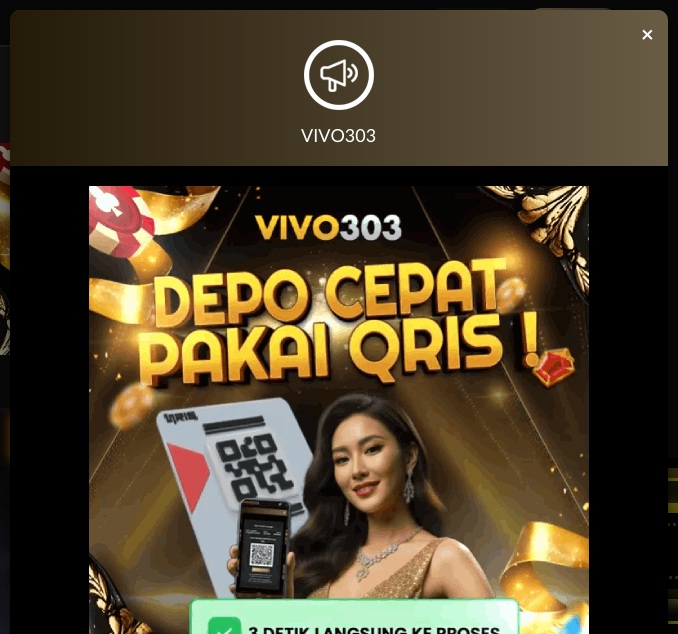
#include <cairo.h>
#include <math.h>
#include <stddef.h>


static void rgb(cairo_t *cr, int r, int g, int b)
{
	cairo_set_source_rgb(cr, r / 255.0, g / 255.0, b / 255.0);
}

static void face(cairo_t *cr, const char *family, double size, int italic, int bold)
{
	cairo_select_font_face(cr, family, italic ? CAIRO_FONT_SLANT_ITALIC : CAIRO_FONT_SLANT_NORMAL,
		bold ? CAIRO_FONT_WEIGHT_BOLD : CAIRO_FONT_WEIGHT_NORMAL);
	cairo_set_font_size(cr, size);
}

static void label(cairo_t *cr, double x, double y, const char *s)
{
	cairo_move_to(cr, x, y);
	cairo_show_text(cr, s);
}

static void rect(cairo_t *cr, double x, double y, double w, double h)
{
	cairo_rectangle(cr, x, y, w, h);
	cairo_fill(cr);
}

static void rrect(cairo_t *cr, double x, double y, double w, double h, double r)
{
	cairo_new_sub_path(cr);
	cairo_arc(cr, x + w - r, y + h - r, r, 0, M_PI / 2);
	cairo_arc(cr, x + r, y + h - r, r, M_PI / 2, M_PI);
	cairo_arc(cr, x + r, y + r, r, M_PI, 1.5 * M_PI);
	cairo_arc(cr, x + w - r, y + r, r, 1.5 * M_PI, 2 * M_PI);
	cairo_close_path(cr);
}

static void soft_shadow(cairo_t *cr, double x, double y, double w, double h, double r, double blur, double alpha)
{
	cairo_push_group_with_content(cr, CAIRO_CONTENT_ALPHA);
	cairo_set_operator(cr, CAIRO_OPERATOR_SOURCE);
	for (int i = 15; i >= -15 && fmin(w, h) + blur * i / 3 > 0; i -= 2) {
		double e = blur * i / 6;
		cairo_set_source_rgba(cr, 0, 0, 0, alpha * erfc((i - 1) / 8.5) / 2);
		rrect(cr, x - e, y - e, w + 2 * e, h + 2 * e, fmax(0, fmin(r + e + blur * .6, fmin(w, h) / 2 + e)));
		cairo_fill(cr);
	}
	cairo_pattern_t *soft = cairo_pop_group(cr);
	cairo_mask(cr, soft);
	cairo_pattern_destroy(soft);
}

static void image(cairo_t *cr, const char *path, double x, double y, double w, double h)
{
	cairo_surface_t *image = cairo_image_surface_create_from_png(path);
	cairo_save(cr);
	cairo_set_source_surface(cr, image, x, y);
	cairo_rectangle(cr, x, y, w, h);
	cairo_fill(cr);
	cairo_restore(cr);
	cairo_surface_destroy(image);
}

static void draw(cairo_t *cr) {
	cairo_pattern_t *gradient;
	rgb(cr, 7, 7, 7);
	cairo_paint(cr);
	gradient = cairo_pattern_create_linear(79, 10, 79, 34);
	cairo_pattern_add_color_stop_rgba(gradient, 0, 0.024, 0.353, 0.502, 1);
	cairo_pattern_add_color_stop_rgba(gradient, 1, 0.008, 0.212, 0.314, 1);
	cairo_set_source(cr, gradient);
	cairo_pattern_destroy(gradient);
	rrect(cr, 15, 10, 128, 24, 3);
	cairo_fill(cr);
	rgb(cr, 14, 14, 14);
	rrect(cr, 428, 8, 90, 28, 14);
	cairo_fill(cr);
	gradient = cairo_pattern_create_linear(528, 22, 618, 22);
	cairo_pattern_add_color_stop_rgba(gradient, 0, 0.373, 0.318, 0.22, 1);
	cairo_pattern_add_color_stop_rgba(gradient, 1, 0.204, 0.176, 0.133, 1);
	cairo_set_source(cr, gradient);
	cairo_pattern_destroy(gradient);
	rrect(cr, 528, 8, 90, 28, 14);
	cairo_fill(cr);
	rgb(cr, 15, 15, 15);
	rect(cr, 0, 47, 10, 96);
	rgb(cr, 27, 27, 27);
	rect(cr, 0, 45, 10, 2);
	image(cr, "image2.png", 0, 143, 10, 212);
	image(cr, "image3.png", 0, 408, 10, 226);
	rgb(cr, 0, 0, 0);
	rect(cr, 668, 458, 10, 10);
	gradient = cairo_pattern_create_linear(410, 468, 410, 634);
	cairo_pattern_add_color_stop_rgba(gradient, 0, 0.176, 0.161, 0.031, 1);
	cairo_pattern_add_color_stop_rgba(gradient, 1, 0, 0, 0, 1);
	cairo_set_source(cr, gradient);
	cairo_pattern_destroy(gradient);
	rect(cr, 668, 468, 10, 166);
	cairo_set_source_rgba(cr, 0, 0, 0, 0.6);
	rect(cr, 668, 481, 10, 136);
	cairo_rectangle(cr, 66.5, 479.5, 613, 143);
	rgb(cr, 90, 82, 12);
	cairo_set_line_width(cr, 3);
	cairo_stroke(cr);
	rgb(cr, 128, 126, 72);
	soft_shadow(cr, 319, 508, 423, 96, 48, 7.5, 0.5);
	gradient = cairo_pattern_create_linear(531, 503, 531, 599);
	cairo_pattern_add_color_stop_rgba(gradient, 0, 0.353, 0.322, 0.047, 1);
	cairo_pattern_add_color_stop_rgba(gradient, 1, 0.047, 0.043, 0, 1);
	cairo_set_source(cr, gradient);
	cairo_pattern_destroy(gradient);
	rect(cr, 668, 503, 10, 96);
	rgb(cr, 0, 0, 0);
	rect(cr, 668, 513, 10, 76);
	cairo_new_path(cr);
	cairo_move_to(cr, 367, 524.5);
	cairo_line_to(cr, 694, 524.5);
	cairo_curve_to(cr, 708.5, 524.5, 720.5, 536.5, 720.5, 551);
	cairo_curve_to(cr, 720.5, 565.5, 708.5, 577.5, 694, 577.5);
	cairo_line_to(cr, 367, 577.5);
	cairo_curve_to(cr, 352.5, 577.5, 340.5, 565.5, 340.5, 551);
	cairo_curve_to(cr, 340.5, 536.5, 352.5, 524.5, 367, 524.5);
	cairo_close_path(cr);
	rgb(cr, 45, 41, 8);
	cairo_set_dash(cr, (double[]){3, 3}, 2, 0);
	cairo_stroke(cr);
	rgb(cr, 0, 0, 0);
	soft_shadow(cr, 10, 13, 658, 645, 10, 4.5, 0.5);
	gradient = cairo_pattern_create_linear(10, 88, 668, 88);
	cairo_pattern_add_color_stop_rgba(gradient, 0, 0.137, 0.102, 0.031, 1);
	cairo_pattern_add_color_stop_rgba(gradient, 1, 0.412, 0.361, 0.271, 1);
	cairo_set_source(cr, gradient);
	cairo_pattern_destroy(gradient);
	cairo_new_path(cr);
	cairo_move_to(cr, 20, 10);
	cairo_line_to(cr, 658, 10);
	cairo_curve_to(cr, 663.5, 10, 668, 14.5, 668, 20);
	cairo_line_to(cr, 668, 166);
	cairo_line_to(cr, 10, 166);
	cairo_line_to(cr, 10, 20);
	cairo_curve_to(cr, 10, 14.5, 14.5, 10, 20, 10);
	cairo_close_path(cr);
	cairo_fill(cr);
	face(cr, "Lato", 21, 0, 1);
	rgb(cr, 255, 255, 255);
	label(cr, 641, 42, "×");
	image(cr, "image0.png", 304, 40, 70, 70);
	face(cr, "Lato", 18, 0, 0);
	label(cr, 301, 142, "VIVO303");
	rgb(cr, 128, 73, 0);
	soft_shadow(cr, 9, 411, 42, 53, 11, 6, 0.7);
	rgb(cr, 0, 0, 0);
	rect(cr, 10, 166, 658, 468);
	image(cr, "image1.png", 89, 186, 500, 448);
}

int main(void) {
	cairo_surface_t *surface = cairo_image_surface_create(CAIRO_FORMAT_RGB24, 678, 634);
	cairo_t *cr = cairo_create(surface);
	cairo_font_options_t *options = cairo_font_options_create();
	cairo_font_options_set_hint_metrics(options, CAIRO_HINT_METRICS_OFF);
	cairo_font_options_set_hint_style(options, CAIRO_HINT_STYLE_NONE);
	cairo_set_font_options(cr, options);
	cairo_set_miter_limit(cr, 4);
	draw(cr);
	cairo_surface_write_to_png(surface, "render.png");
	cairo_font_options_destroy(options);
	cairo_destroy(cr);
	cairo_surface_destroy(surface);
	return 0;
}
